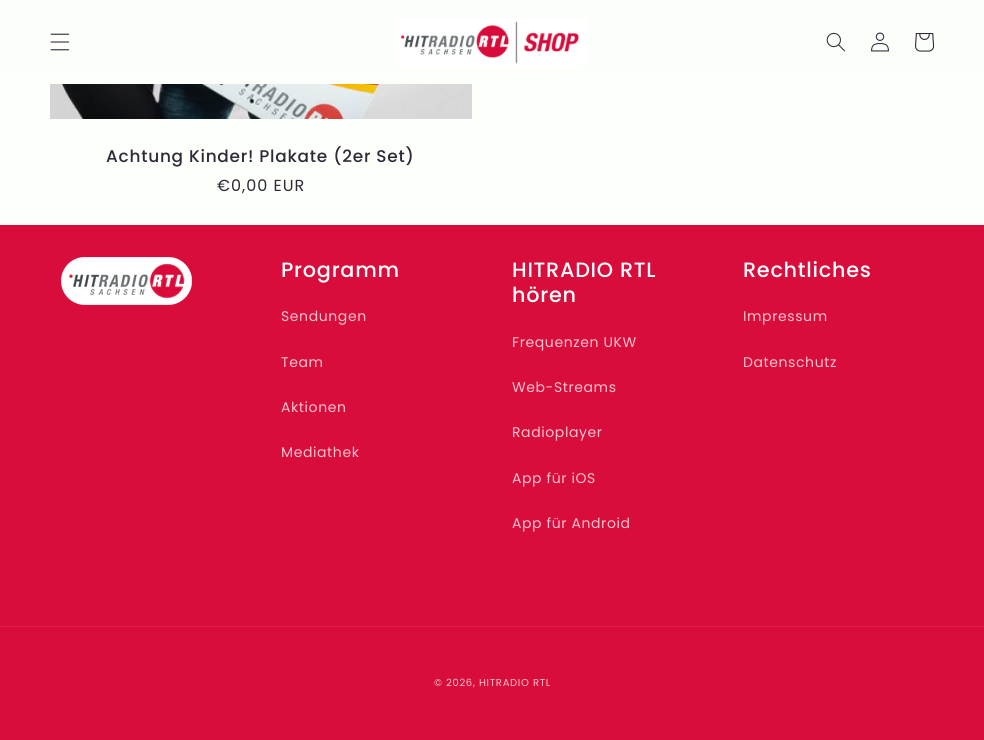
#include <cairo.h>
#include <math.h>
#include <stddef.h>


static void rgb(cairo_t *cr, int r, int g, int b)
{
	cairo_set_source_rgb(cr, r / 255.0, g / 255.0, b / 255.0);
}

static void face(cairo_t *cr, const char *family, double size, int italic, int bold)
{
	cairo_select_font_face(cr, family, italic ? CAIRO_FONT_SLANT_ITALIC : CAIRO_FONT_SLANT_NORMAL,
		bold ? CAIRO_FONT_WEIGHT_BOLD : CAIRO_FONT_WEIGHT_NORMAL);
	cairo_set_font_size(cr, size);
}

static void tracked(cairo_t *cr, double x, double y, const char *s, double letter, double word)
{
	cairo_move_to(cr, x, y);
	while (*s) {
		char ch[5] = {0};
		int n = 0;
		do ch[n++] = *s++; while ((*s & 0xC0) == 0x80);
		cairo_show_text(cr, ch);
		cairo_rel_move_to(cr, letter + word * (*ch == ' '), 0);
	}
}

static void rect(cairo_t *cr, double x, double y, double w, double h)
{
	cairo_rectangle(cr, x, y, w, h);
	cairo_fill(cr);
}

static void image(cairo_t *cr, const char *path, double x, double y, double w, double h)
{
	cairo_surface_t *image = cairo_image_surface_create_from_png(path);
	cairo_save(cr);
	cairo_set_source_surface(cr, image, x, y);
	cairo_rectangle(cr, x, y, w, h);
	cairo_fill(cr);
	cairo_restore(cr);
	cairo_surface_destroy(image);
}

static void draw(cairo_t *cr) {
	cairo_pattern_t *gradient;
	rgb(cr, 255, 255, 255);
	cairo_paint(cr);
	gradient = cairo_pattern_create_linear(492, 0, 492, 740);
	cairo_pattern_add_color_stop_rgba(gradient, 0, 0.988, 1, 0.976, 1);
	cairo_pattern_add_color_stop_rgba(gradient, 1, 1, 1, 1, 1);
	cairo_set_source(cr, gradient);
	cairo_pattern_destroy(gradient);
	rect(cr, 0, 84, 984, 141);
	rect(cr, 0, 0, 984, 84);
	image(cr, "image0.png", 50, 33, 20, 18);
	image(cr, "image1.png", 397, 18, 190, 49);
	image(cr, "image2.png", 826, 32, 19, 20);
	image(cr, "image3.png", 871, 32, 18, 20);
	image(cr, "image4.png", 915, 33, 20, 19);
	image(cr, "image5.png", 50, 84, 422, 35);
	face(cr, "Poppins Medium", 16.9, 0, 0);
	rgb(cr, 46, 42, 57);
	tracked(cr, 106, 162, "Achtung Kinder! Plakate (2er Set)", 0.75, 0);
	face(cr, "Poppins", 16, 0, 0);
	tracked(cr, 217, 191, "€0,00 EUR", 1, 0);
	rgb(cr, 217, 13, 59);
	rect(cr, 0, 225, 984, 515);
	image(cr, "image6.png", 61, 257, 131, 48);
	face(cr, "Poppins Medium", 20.75, 0, 0);
	rgb(cr, 255, 255, 255);
	tracked(cr, 281, 277, "Programm", 0.75, 0);
	face(cr, "Poppins", 14, 0, 0);
	rgb(cr, 246, 195, 206);
	tracked(cr, 281, 321, "Sendungen", 0.6, 0);
	tracked(cr, 281, 367, "Team", 0.6, 0);
	tracked(cr, 281, 412, "Aktionen", 0.6, 0);
	tracked(cr, 281, 457, "Mediathek", 0.6, 0);
	face(cr, "Poppins Medium", 20.75, 0, 0);
	rgb(cr, 255, 255, 255);
	tracked(cr, 512, 277, "HITRADIO RTL", 0.75, 0);
	tracked(cr, 512, 302, "hören", 0.75, 0);
	face(cr, "Poppins", 14, 0, 0);
	rgb(cr, 246, 195, 206);
	tracked(cr, 512, 347, "Frequenzen UKW", 0.6, 0);
	tracked(cr, 512, 392, "Web-Streams", 0.6, 0);
	tracked(cr, 512, 437, "Radioplayer", 0.6, 0);
	tracked(cr, 512, 483, "App für iOS", 0.6, 0);
	tracked(cr, 512, 528, "App für Android", 0.6, 0);
	face(cr, "Poppins Medium", 20.75, 0, 0);
	rgb(cr, 255, 255, 255);
	tracked(cr, 743, 277, "Rechtliches", 0.75, 0);
	face(cr, "Poppins", 14, 0, 0);
	rgb(cr, 246, 195, 206);
	tracked(cr, 743, 321, "Impressum", 0.6, 0);
	tracked(cr, 743, 367, "Datenschutz", 0.6, 0);
	rgb(cr, 220, 32, 75);
	rect(cr, 0, 626, 984, 1);
	face(cr, "Poppins", 10, 0, 0);
	rgb(cr, 246, 195, 206);
	tracked(cr, 434, 686, "© 2026, HITRADIO RTL", 0.7, 0);
}

int main(void) {
	cairo_surface_t *surface = cairo_image_surface_create(CAIRO_FORMAT_RGB24, 984, 740);
	cairo_t *cr = cairo_create(surface);
	cairo_font_options_t *options = cairo_font_options_create();
	cairo_font_options_set_hint_metrics(options, CAIRO_HINT_METRICS_OFF);
	cairo_font_options_set_hint_style(options, CAIRO_HINT_STYLE_NONE);
	cairo_set_font_options(cr, options);
	cairo_set_miter_limit(cr, 4);
	draw(cr);
	cairo_surface_write_to_png(surface, "render.png");
	cairo_font_options_destroy(options);
	cairo_destroy(cr);
	cairo_surface_destroy(surface);
	return 0;
}
